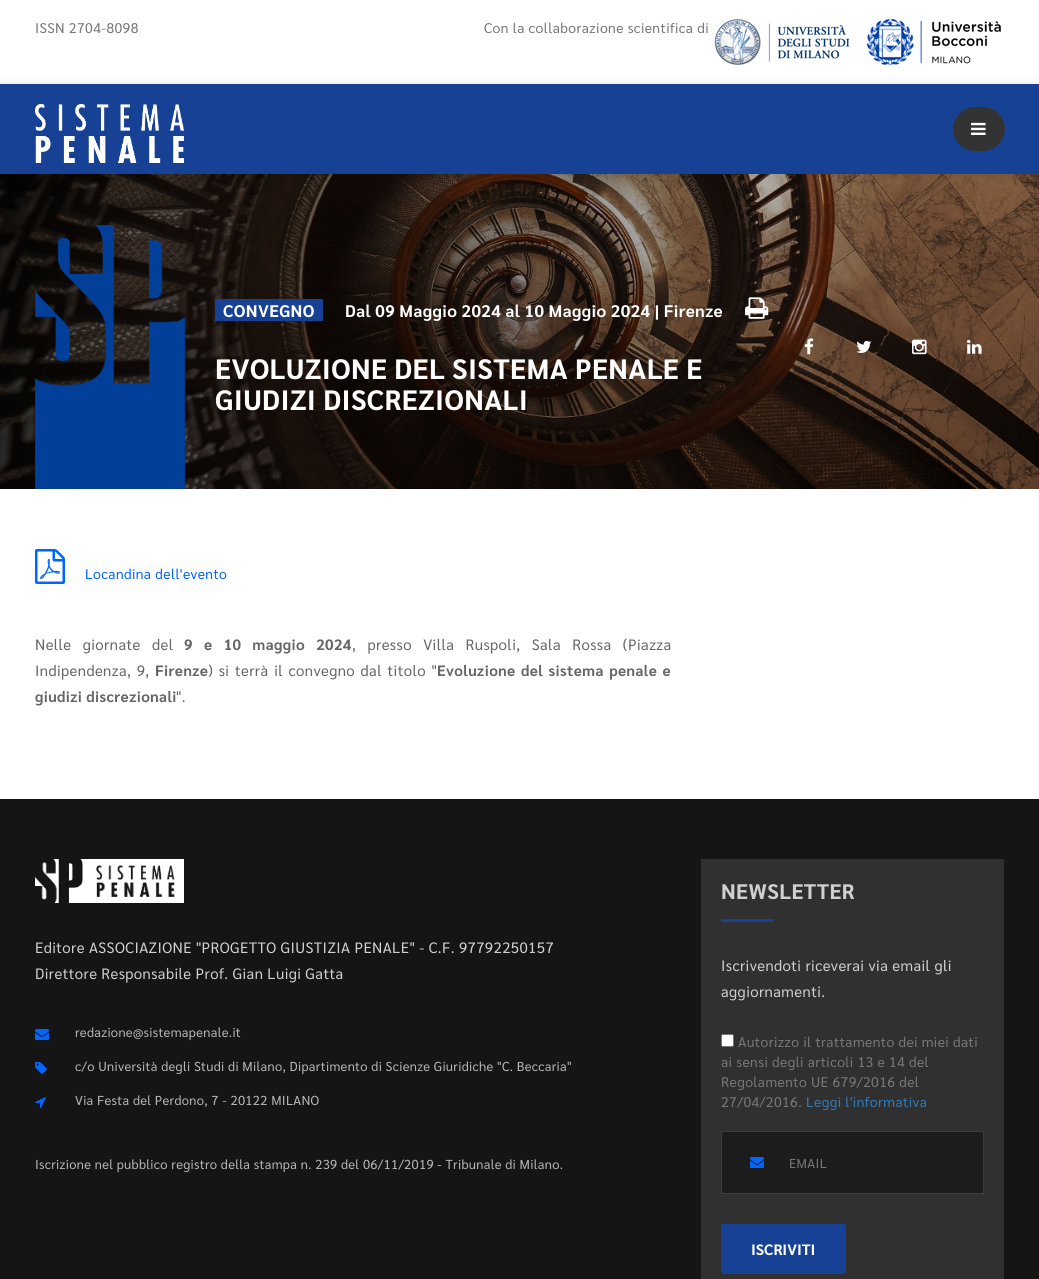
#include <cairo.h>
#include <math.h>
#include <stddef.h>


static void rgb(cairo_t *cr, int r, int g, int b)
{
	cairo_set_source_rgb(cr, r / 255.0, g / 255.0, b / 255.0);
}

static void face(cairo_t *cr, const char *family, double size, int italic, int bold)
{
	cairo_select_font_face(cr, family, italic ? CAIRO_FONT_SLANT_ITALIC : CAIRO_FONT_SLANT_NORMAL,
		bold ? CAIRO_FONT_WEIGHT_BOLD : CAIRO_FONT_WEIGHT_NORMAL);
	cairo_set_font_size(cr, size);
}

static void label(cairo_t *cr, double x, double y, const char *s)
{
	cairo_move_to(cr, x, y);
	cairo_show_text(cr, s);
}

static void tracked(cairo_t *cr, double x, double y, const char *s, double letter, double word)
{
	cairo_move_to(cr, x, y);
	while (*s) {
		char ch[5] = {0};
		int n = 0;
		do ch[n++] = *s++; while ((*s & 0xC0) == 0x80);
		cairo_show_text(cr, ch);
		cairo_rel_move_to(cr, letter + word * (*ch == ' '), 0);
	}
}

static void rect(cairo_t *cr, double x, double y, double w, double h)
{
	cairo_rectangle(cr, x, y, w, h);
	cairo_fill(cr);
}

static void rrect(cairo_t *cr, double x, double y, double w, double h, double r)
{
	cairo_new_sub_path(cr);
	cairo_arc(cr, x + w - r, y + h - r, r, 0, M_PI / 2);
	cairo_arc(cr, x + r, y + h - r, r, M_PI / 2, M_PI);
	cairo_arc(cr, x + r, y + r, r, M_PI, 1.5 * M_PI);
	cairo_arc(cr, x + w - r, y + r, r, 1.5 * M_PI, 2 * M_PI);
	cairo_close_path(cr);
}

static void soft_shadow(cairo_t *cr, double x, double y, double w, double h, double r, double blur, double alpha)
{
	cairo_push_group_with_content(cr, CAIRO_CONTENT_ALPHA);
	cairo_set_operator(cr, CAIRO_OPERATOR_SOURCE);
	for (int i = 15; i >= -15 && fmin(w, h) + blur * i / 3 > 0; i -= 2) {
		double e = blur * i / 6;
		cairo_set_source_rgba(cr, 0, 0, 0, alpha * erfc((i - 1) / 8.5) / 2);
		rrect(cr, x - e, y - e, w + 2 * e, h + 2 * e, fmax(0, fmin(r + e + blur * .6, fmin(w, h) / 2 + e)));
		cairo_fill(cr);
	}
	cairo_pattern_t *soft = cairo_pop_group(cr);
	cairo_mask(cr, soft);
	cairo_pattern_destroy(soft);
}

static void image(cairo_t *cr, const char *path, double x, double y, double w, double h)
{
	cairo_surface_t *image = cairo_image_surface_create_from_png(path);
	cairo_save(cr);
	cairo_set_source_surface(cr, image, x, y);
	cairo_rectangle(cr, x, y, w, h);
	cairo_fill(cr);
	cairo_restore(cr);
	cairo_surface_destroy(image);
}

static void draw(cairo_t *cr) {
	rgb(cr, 255, 255, 255);
	cairo_paint(cr);
	face(cr, "Sarabun", 14, 0, 0);
	rgb(cr, 119, 119, 119);
	tracked(cr, 35, 33, "ISSN 2704-8098", 0.4, 0);
	tracked(cr, 484, 33, "Con la collaborazione scientifica di", 0.4, 0);
	image(cr, "image0.png", 714, 19, 136, 47);
	image(cr, "image1.png", 866, 18, 136, 48);
	image(cr, "image4.png", 0, 174, 1039, 315);
	rgb(cr, 0, 0, 0);
	soft_shadow(cr, 0, 84, 1039, 90, 0, 5, 0.1);
	rgb(cr, 22, 65, 148);
	rect(cr, 0, 84, 1039, 90);
	image(cr, "image2.png", 35, 104, 149, 59);
	rgb(cr, 51, 51, 51);
	rrect(cr, 953, 107, 52, 44, 22);
	cairo_fill(cr);
	image(cr, "image3.png", 971, 122, 15, 13);
	image(cr, "image5.png", 35, 225, 150, 264);
	rgb(cr, 22, 65, 148);
	rect(cr, 215, 299, 108, 22);
	face(cr, "Sarabun", 16.8, 0, 1);
	rgb(cr, 255, 255, 255);
	tracked(cr, 223, 317, "CONVEGNO", 0.4, 0);
	tracked(cr, 345, 317, "Dal 09 Maggio 2024 al 10 Maggio 2024 | Firenze", 0.4, 0);
	image(cr, "image6.png", 745, 297, 24, 22);
	image(cr, "image7.png", 804, 338, 10, 17);
	image(cr, "image8.png", 856, 340, 16, 13);
	image(cr, "image9.png", 912, 339, 15, 16);
	image(cr, "image10.png", 967, 339, 15, 15);
	face(cr, "Sarabun", 28, 0, 1);
	tracked(cr, 215, 379, "EVOLUZIONE DEL SISTEMA PENALE E", 0.4, 0);
	tracked(cr, 215, 410, "GIUDIZI DISCREZIONALI", 0.4, 0);
	image(cr, "image11.png", 35, 549, 30, 35);
	face(cr, "Sarabun", 14, 0, 0);
	rgb(cr, 0, 102, 255);
	tracked(cr, 85, 579, "Locandina dell'evento", 0.4, 0);
	face(cr, "Sarabun", 15, 0, 0);
	rgb(cr, 102, 102, 102);
	tracked(cr, 35, 650, "Nelle giornate del", 0.4, 7.25);
	face(cr, "Sarabun", 15, 0, 1);
	tracked(cr, 184, 650, "9 e 10 maggio 2024", 0.4, 7.25);
	face(cr, "Sarabun", 15, 0, 0);
	tracked(cr, 352, 650, ", presso Villa Ruspoli, Sala Rossa (Piazza", 0.4, 7.25);
	tracked(cr, 35, 676, "Indipendenza, 9,", 0.4, 1.5);
	face(cr, "Sarabun", 15, 0, 1);
	tracked(cr, 155, 676, "Firenze", 0.4, 0);
	face(cr, "Sarabun", 15, 0, 0);
	tracked(cr, 208, 676, ") si terrà il convegno dal titolo \"", 0.4, 1.5);
	face(cr, "Sarabun", 15, 0, 1);
	tracked(cr, 437, 676, "Evoluzione del sistema penale e", 0.4, 1.5);
	tracked(cr, 35, 702, "giudizi discrezionali", 0.4, 0);
	face(cr, "Sarabun", 15, 0, 0);
	tracked(cr, 176, 702, "\".", 0.4, 0);
	rgb(cr, 21, 21, 21);
	rect(cr, 0, 799, 1039, 480);
	image(cr, "image12.png", 35, 859, 149, 44);
	rgb(cr, 208, 208, 208);
	tracked(cr, 35, 953, "Editore ASSOCIAZIONE \"PROGETTO GIUSTIZIA PENALE\" - C.F. 97792250157", 0.4, 0);
	tracked(cr, 35, 979, "Direttore Responsabile Prof. Gian Luigi Gatta", 0.4, 0);
	image(cr, "image13.png", 35, 1029, 14, 11);
	face(cr, "Sarabun", 13, 0, 0);
	rgb(cr, 184, 183, 183);
	tracked(cr, 75, 1037, "redazione@sistemapenale.it", 0.3, 0);
	image(cr, "image14.png", 35, 1062, 12, 12);
	tracked(cr, 75, 1071, "c/o Università degli Studi di Milano, Dipartimento di Scienze Giuridiche \"C. Beccaria\"", 0.3, 0);
	image(cr, "image15.png", 35, 1097, 11, 11);
	tracked(cr, 75, 1105, "Via Festa del Perdono, 7 - 20122 MILANO", 0.3, 0);
	tracked(cr, 35, 1169, "Iscrizione nel pubblico registro della stampa n. 239 del 06/11/2019 - Tribunale di Milano.", 0.3, 0);
	rgb(cr, 48, 48, 48);
	rect(cr, 701, 859, 303, 420);
	face(cr, "Sarabun", 21, 0, 1);
	rgb(cr, 208, 208, 208);
	tracked(cr, 721, 899, "NEWSLETTER", 0.4, 0);
	rgb(cr, 22, 65, 148);
	rect(cr, 721, 919, 53, 3);
	face(cr, "Sarabun", 15, 0, 0);
	rgb(cr, 208, 208, 208);
	tracked(cr, 721, 971, "Iscrivendoti riceverai via email gli", 0.4, 0);
	tracked(cr, 721, 997, "aggiornamenti.", 0.4, 0);
	rgb(cr, 255, 255, 255);
	rrect(cr, 721.5, 1034.5, 12, 12, 1.5);
	cairo_fill_preserve(cr);
	rgb(cr, 118, 118, 118);
	cairo_set_line_width(cr, 1);
	cairo_stroke(cr);
	face(cr, "Sarabun", 14, 0, 0);
	rgb(cr, 119, 119, 119);
	tracked(cr, 738, 1047, "Autorizzo il trattamento dei miei dati", 0.4, 0);
	tracked(cr, 721, 1067, "ai sensi degli articoli 13 e 14 del", 0.4, 0);
	tracked(cr, 721, 1087, "Regolamento UE 679/2016 del", 0.4, 0);
	tracked(cr, 721, 1107, "27/04/2016.", 0.4, 0);
	rgb(cr, 51, 122, 183);
	tracked(cr, 806, 1107, "Leggi l'informativa", 0.4, 0);
	rgb(cr, 28, 28, 28);
	cairo_rectangle(cr, 721.5, 1131.5, 262, 62);
	cairo_fill_preserve(cr);
	rgb(cr, 22, 65, 148);
	cairo_stroke(cr);
	image(cr, "image16.png", 750, 1157, 14, 11);
	face(cr, "Sarabun", 13, 0, 0);
	rgb(cr, 119, 119, 119);
	tracked(cr, 789, 1168, "EMAIL", 0.4, 0);
	rgb(cr, 22, 65, 148);
	rrect(cr, 721, 1224, 125, 50, 3);
	cairo_fill(cr);
	face(cr, "Sarabun", 15, 0, 1);
	rgb(cr, 255, 255, 255);
	label(cr, 751, 1255, "ISCRIVITI");
}

int main(void) {
	cairo_surface_t *surface = cairo_image_surface_create(CAIRO_FORMAT_RGB24, 1039, 1279);
	cairo_t *cr = cairo_create(surface);
	cairo_font_options_t *options = cairo_font_options_create();
	cairo_font_options_set_hint_metrics(options, CAIRO_HINT_METRICS_OFF);
	cairo_font_options_set_hint_style(options, CAIRO_HINT_STYLE_NONE);
	cairo_set_font_options(cr, options);
	cairo_set_miter_limit(cr, 4);
	draw(cr);
	cairo_surface_write_to_png(surface, "render.png");
	cairo_font_options_destroy(options);
	cairo_destroy(cr);
	cairo_surface_destroy(surface);
	return 0;
}
